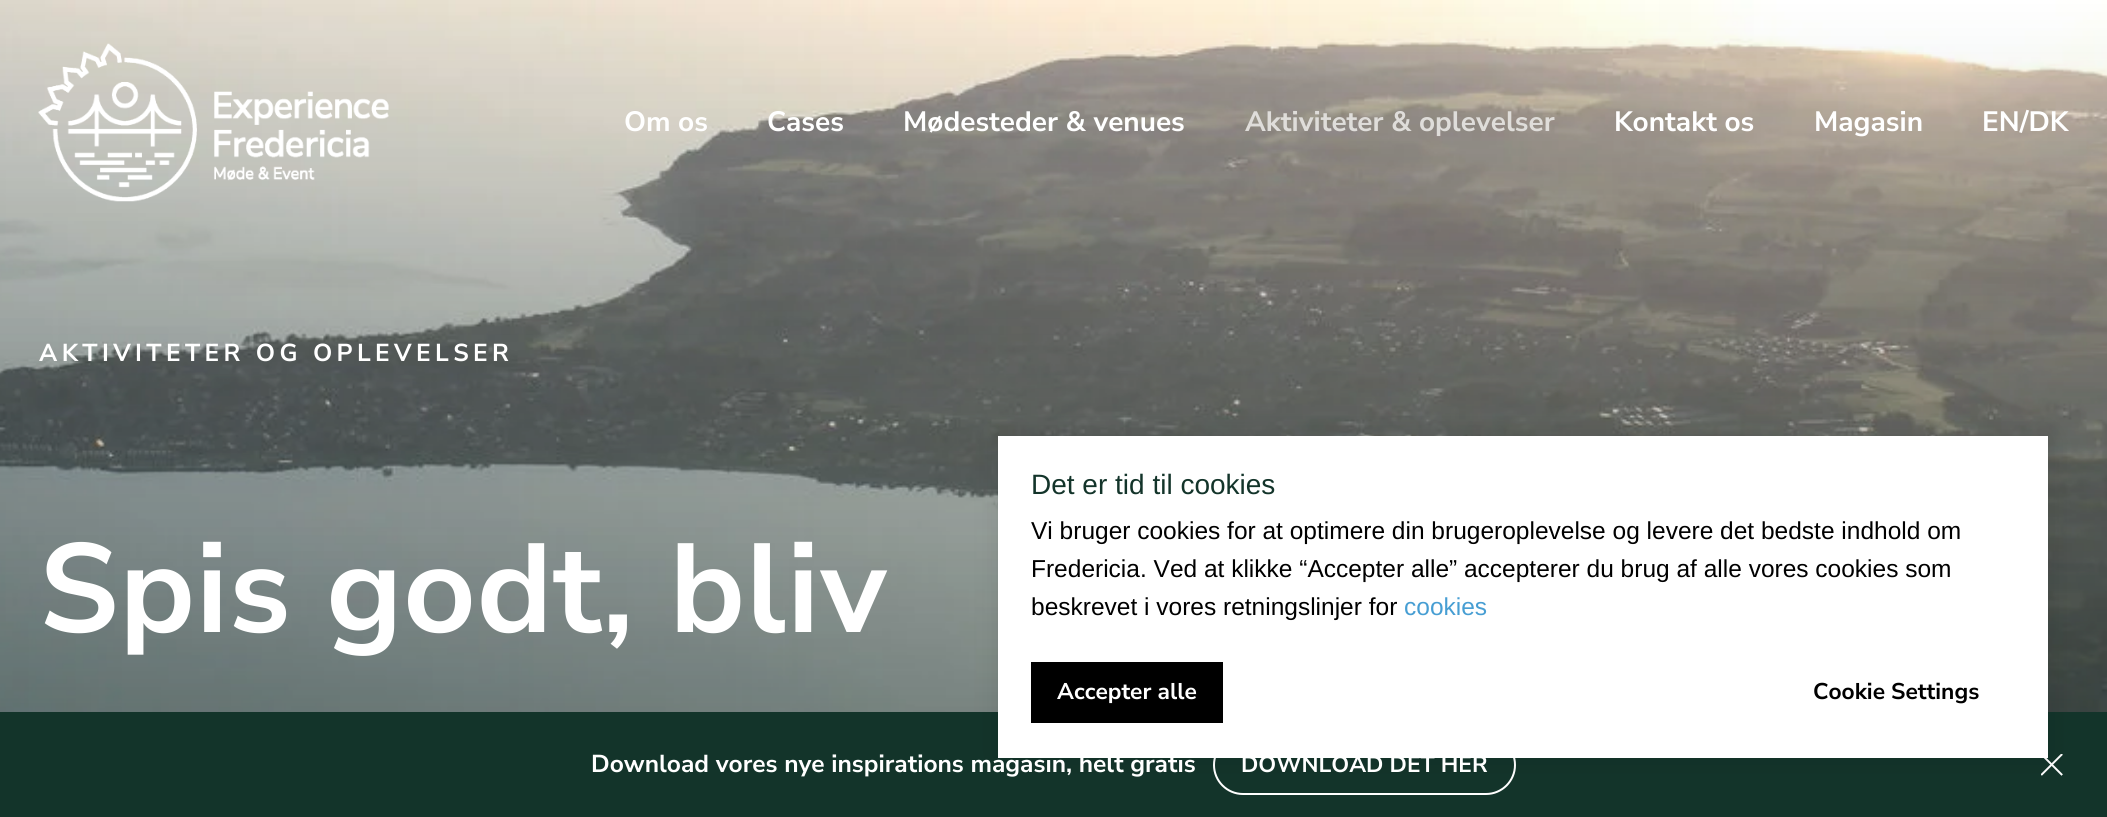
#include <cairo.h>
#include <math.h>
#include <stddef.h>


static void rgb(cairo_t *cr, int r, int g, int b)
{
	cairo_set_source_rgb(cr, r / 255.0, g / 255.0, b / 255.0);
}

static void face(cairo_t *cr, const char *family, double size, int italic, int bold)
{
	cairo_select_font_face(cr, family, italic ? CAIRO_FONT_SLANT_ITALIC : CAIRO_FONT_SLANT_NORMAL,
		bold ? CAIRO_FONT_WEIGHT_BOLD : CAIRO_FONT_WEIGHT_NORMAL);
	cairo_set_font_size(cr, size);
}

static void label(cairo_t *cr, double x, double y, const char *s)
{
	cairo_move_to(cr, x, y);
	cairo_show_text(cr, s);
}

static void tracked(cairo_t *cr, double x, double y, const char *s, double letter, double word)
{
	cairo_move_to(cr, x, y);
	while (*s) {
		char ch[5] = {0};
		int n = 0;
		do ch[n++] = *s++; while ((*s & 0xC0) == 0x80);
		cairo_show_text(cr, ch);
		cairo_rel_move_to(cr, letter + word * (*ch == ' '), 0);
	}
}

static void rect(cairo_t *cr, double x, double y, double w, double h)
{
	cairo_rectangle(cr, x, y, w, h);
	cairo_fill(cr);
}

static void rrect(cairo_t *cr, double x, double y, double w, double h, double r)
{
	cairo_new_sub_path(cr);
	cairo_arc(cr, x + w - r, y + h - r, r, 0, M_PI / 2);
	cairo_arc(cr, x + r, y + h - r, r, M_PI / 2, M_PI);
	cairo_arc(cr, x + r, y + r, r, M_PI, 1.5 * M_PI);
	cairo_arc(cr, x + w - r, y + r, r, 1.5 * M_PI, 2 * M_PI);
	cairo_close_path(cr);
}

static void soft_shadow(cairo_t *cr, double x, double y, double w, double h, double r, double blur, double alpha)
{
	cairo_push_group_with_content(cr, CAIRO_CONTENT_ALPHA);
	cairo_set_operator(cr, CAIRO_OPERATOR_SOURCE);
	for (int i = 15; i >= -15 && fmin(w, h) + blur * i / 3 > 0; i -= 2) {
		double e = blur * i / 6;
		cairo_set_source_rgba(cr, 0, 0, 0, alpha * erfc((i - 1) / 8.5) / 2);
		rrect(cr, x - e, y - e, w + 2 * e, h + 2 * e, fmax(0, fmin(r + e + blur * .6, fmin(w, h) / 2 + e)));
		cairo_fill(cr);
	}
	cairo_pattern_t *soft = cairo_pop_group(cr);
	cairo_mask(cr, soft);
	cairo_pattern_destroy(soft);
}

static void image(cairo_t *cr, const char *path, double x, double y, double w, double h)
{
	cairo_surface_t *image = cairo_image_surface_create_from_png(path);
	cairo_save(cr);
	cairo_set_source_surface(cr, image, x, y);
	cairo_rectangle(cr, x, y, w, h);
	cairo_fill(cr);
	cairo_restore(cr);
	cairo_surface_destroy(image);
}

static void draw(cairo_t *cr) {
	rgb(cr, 255, 255, 255);
	cairo_paint(cr);
	image(cr, "image1.png", 0, 0, 2107, 712);
	image(cr, "image0.png", 38, 43, 351, 159);
	face(cr, "Nunito Sans", 28, 0, 1);
	rgb(cr, 255, 255, 255);
	label(cr, 624, 131, "Om os");
	label(cr, 767, 131, "Cases");
	label(cr, 903, 131, "Mødesteder & venues");
	rgb(cr, 223, 221, 218);
	label(cr, 1245, 131, "Aktiviteter & oplevelser");
	rgb(cr, 255, 255, 255);
	label(cr, 1614, 131, "Kontakt os");
	label(cr, 1814, 131, "Magasin");
	label(cr, 1982, 131, "EN/DK");
	face(cr, "Nunito Sans", 24.5, 0, 1);
	tracked(cr, 39, 361, "AKTIVITETER OG OPLEVELSER", 4.4, 0);
	face(cr, "Nunito Sans", 126, 0, 1);
	tracked(cr, 39, 632, "Spis godt, bliv", 0.9, 0);
	rgb(cr, 19, 52, 42);
	rect(cr, 0, 712, 2107, 105);
	rrect(cr, 1214, 736, 301, 58, 29);
	rgb(cr, 255, 255, 255);
	cairo_stroke(cr);
	image(cr, "image2.png", 2041, 754, 22, 22);
	rgb(cr, 0, 0, 0);
	soft_shadow(cr, 998, 436, 1050, 322, 0, 13, 0.1);
	rgb(cr, 255, 255, 255);
	rect(cr, 998, 436, 1050, 322);
	face(cr, "Liberation Sans", 28, 0, 0);
	rgb(cr, 19, 52, 42);
	label(cr, 1031, 494, "Det er tid til cookies");
	face(cr, "Liberation Sans", 24.5, 0, 0);
	rgb(cr, 0, 0, 0);
	label(cr, 1031, 539, "Vi bruger cookies for at optimere din brugeroplevelse og levere det bedste indhold om");
	label(cr, 1031, 577, "Fredericia. Ved at klikke “Accepter alle” accepterer du brug af alle vores cookies som");
	label(cr, 1031, 615, "beskrevet i vores retningslinjer for");
	rgb(cr, 71, 158, 211);
	label(cr, 1404, 615, "cookies");
	rgb(cr, 0, 0, 0);
	rect(cr, 1031, 662, 192, 61);
	face(cr, "Nunito Sans", 22.75, 0, 1);
	rgb(cr, 255, 255, 255);
	label(cr, 1057, 699, "Accepter alle");
	rgb(cr, 0, 0, 0);
	label(cr, 1813, 699, "Cookie Settings");
	face(cr, "Nunito Sans", 24.5, 0, 1);
	rgb(cr, 255, 255, 255);
	label(cr, 591, 772, "Download vores nye inspirations magasin, helt gratis");
	face(cr, "Nunito Sans", 22.75, 0, 1);
	label(cr, 1241, 772, "DOWNLOAD DET HER");
}

int main(void) {
	cairo_surface_t *surface = cairo_image_surface_create(CAIRO_FORMAT_RGB24, 2107, 817);
	cairo_t *cr = cairo_create(surface);
	cairo_font_options_t *options = cairo_font_options_create();
	cairo_font_options_set_hint_metrics(options, CAIRO_HINT_METRICS_OFF);
	cairo_font_options_set_hint_style(options, CAIRO_HINT_STYLE_NONE);
	cairo_set_font_options(cr, options);
	cairo_set_miter_limit(cr, 4);
	draw(cr);
	cairo_surface_write_to_png(surface, "render.png");
	cairo_font_options_destroy(options);
	cairo_destroy(cr);
	cairo_surface_destroy(surface);
	return 0;
}
